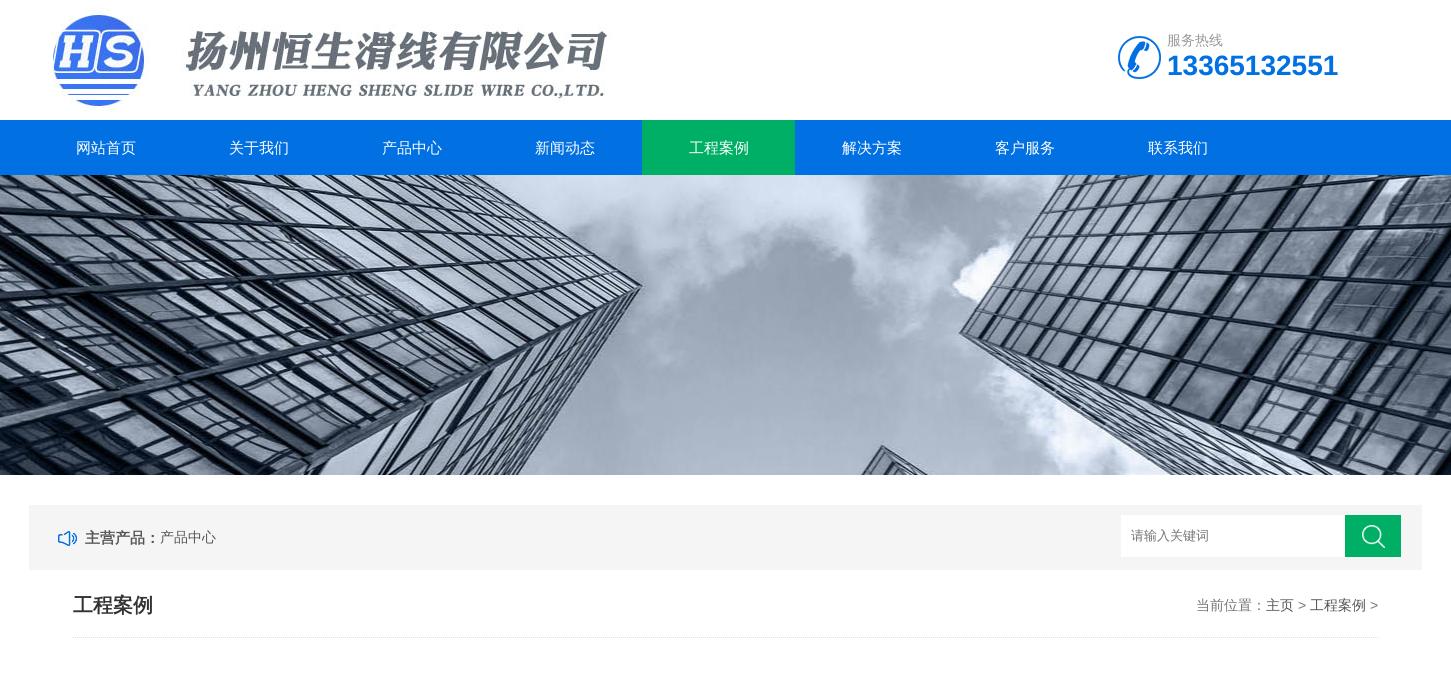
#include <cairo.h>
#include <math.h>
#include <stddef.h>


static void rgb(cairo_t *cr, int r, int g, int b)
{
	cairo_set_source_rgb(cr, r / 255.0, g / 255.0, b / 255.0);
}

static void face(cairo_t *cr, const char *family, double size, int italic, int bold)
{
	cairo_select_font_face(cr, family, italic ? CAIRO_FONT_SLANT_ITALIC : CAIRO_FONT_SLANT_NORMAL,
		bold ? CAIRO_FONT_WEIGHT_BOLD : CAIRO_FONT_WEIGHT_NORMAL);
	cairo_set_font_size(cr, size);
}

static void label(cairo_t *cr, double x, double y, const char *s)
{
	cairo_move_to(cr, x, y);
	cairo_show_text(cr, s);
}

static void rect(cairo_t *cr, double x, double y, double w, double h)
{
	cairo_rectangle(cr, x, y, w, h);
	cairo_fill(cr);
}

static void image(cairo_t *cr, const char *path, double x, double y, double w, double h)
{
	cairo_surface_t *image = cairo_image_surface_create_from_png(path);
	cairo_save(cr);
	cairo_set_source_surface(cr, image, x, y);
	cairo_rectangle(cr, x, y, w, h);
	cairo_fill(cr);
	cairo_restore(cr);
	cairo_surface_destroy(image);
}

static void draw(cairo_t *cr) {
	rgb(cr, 255, 255, 255);
	cairo_paint(cr);
	image(cr, "image0.png", 52, 8, 561, 104);
	image(cr, "image1.png", 1118, 36, 43, 43);
	face(cr, "WenQuanYi Zen Hei Medium", 14, 0, 0);
	rgb(cr, 153, 153, 153);
	label(cr, 1167, 45, "服务热线");
	face(cr, "Liberation Sans", 28, 0, 1);
	rgb(cr, 1, 112, 226);
	label(cr, 1167, 75, "13365132551");
	rect(cr, 0, 120, 1451, 55);
	face(cr, "WenQuanYi Zen Hei Medium", 15, 0, 0);
	rgb(cr, 255, 255, 255);
	label(cr, 76, 153, "网站首页");
	label(cr, 229, 153, "关于我们");
	label(cr, 382, 153, "产品中心");
	label(cr, 535, 153, "新闻动态");
	rgb(cr, 0, 175, 102);
	rect(cr, 642, 120, 153, 55);
	rgb(cr, 255, 255, 255);
	label(cr, 689, 153, "工程案例");
	label(cr, 842, 153, "解决方案");
	label(cr, 995, 153, "客户服务");
	label(cr, 1148, 153, "联系我们");
	image(cr, "image2.png", 0, 175, 1451, 300);
	rgb(cr, 245, 245, 245);
	rect(cr, 29, 505, 1393, 65);
	image(cr, "image3.png", 58, 531, 19, 15);
	face(cr, "WenQuanYi Zen Hei", 15, 0, 1);
	rgb(cr, 85, 85, 85);
	label(cr, 85, 543, "主营产品：");
	face(cr, "WenQuanYi Zen Hei Medium", 14, 0, 0);
	label(cr, 160, 542, "产品中心");
	rgb(cr, 255, 255, 255);
	rect(cr, 1121, 515, 224, 42);
	face(cr, "WenQuanYi Zen Hei Medium", 13, 0, 0);
	rgb(cr, 117, 117, 117);
	label(cr, 1131, 540, "请输入关键词");
	rgb(cr, 0, 175, 102);
	rect(cr, 1345, 515, 56, 42);
	image(cr, "image4.png", 1362, 525, 23, 23);
	cairo_new_path(cr);
	cairo_move_to(cr, 73, 637.5);
	cairo_line_to(cr, 1378, 637.5);
	rgb(cr, 222, 222, 222);
	cairo_set_line_width(cr, 1);
	cairo_set_dash(cr, (double[]){1, 1}, 2, 0);
	cairo_stroke(cr);
	face(cr, "WenQuanYi Zen Hei", 20, 0, 1);
	rgb(cr, 51, 51, 51);
	label(cr, 73, 612, "工程案例");
	face(cr, "WenQuanYi Zen Hei Medium", 14, 0, 0);
	rgb(cr, 117, 117, 117);
	label(cr, 1196, 610, "当前位置：");
	rgb(cr, 85, 85, 85);
	label(cr, 1266, 610, "主页");
	face(cr, "Liberation Sans", 14, 0, 0);
	rgb(cr, 117, 117, 117);
	label(cr, 1298, 610, ">");
	face(cr, "WenQuanYi Zen Hei Medium", 14, 0, 0);
	rgb(cr, 85, 85, 85);
	label(cr, 1310, 610, "工程案例");
	face(cr, "Liberation Sans", 14, 0, 0);
	rgb(cr, 117, 117, 117);
	label(cr, 1370, 610, ">");
}

int main(void) {
	cairo_surface_t *surface = cairo_image_surface_create(CAIRO_FORMAT_RGB24, 1451, 673);
	cairo_t *cr = cairo_create(surface);
	cairo_font_options_t *options = cairo_font_options_create();
	cairo_font_options_set_hint_metrics(options, CAIRO_HINT_METRICS_OFF);
	cairo_font_options_set_hint_style(options, CAIRO_HINT_STYLE_NONE);
	cairo_set_font_options(cr, options);
	cairo_set_miter_limit(cr, 4);
	draw(cr);
	cairo_surface_write_to_png(surface, "render.png");
	cairo_font_options_destroy(options);
	cairo_destroy(cr);
	cairo_surface_destroy(surface);
	return 0;
}
